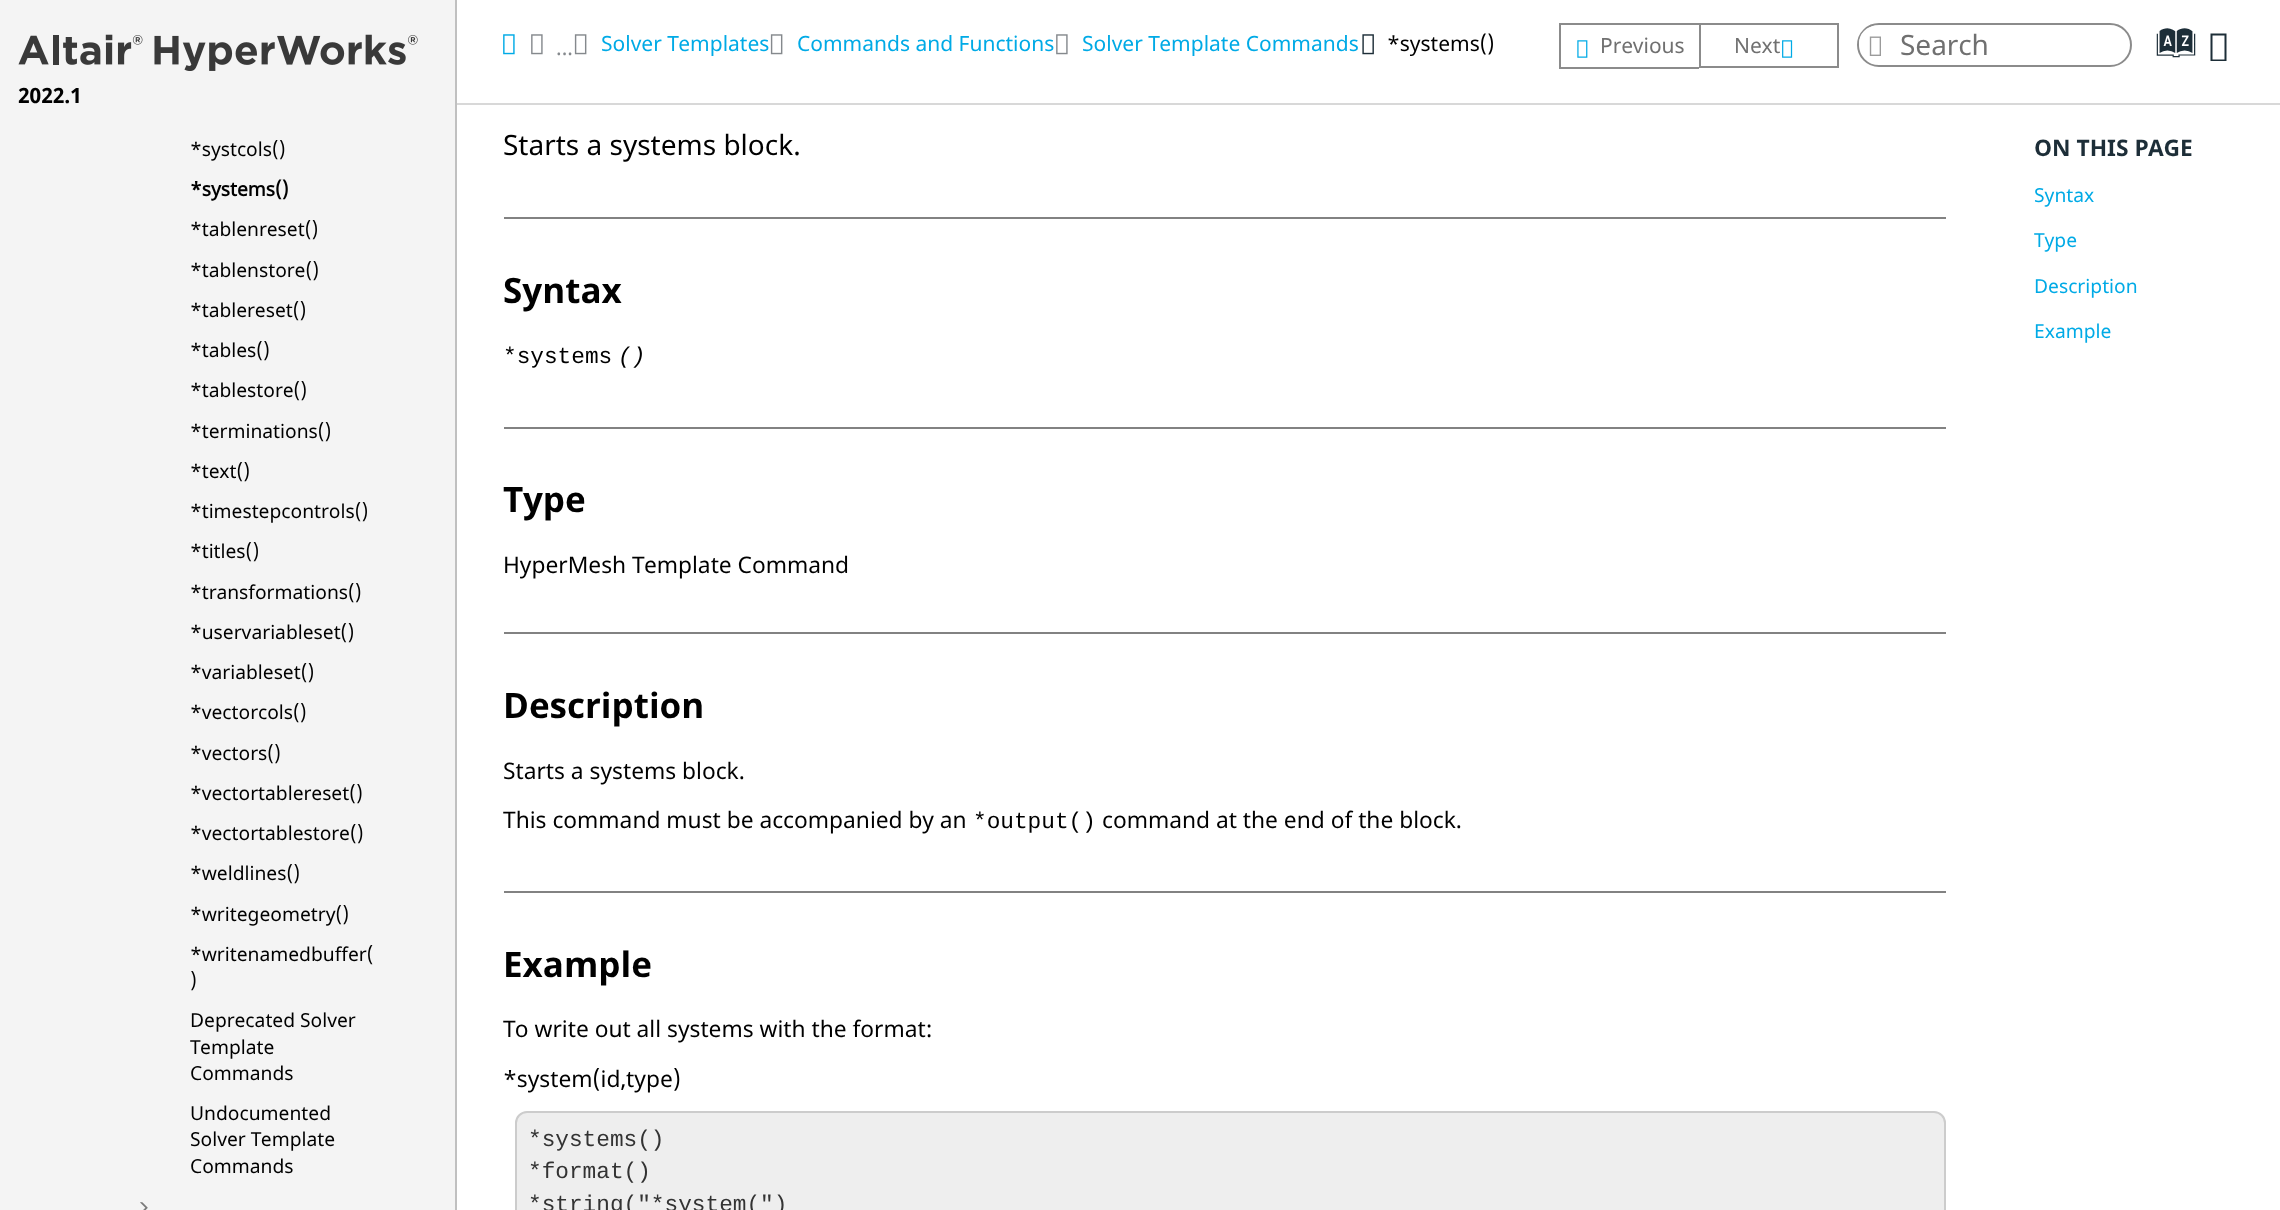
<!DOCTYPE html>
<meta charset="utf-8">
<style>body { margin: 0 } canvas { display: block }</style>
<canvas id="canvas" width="2280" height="1210"></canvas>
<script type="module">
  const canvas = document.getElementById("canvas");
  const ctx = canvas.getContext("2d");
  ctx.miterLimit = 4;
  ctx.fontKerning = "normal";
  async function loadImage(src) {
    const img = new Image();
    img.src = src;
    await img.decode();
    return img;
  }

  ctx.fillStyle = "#ffffff";
  ctx.fillRect(0, 0, 2280, 1210);
  ctx.fillStyle = "#f4f4f4";
  ctx.fillRect(0, 0, 455, 1210);
  ctx.fillStyle = "#c0c0c0";
  ctx.fillRect(455, 0, 2, 1210);
  ctx.drawImage(await loadImage("img1.png"), 18, 34, 400, 37);
  ctx.font = "bold 21px Noto Sans";
  ctx.fillStyle = "#000000";
  ctx.fillText("2022.1", 18, 103);
  ctx.font = "19.25px Noto Sans";
  ctx.fillText("*systcols()", 190, 156);
  ctx.font = "bold 19.25px 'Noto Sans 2'";
  ctx.fillText("*systems()", 190, 196);
  ctx.font = "19.25px Noto Sans";
  ctx.fillText("*tablenreset()", 190, 236);
  ctx.fillText("*tablenstore()", 190, 277);
  ctx.fillText("*tablereset()", 190, 317);
  ctx.fillText("*tables()", 190, 357);
  ctx.fillText("*tablestore()", 190, 397);
  ctx.fillText("*terminations()", 190, 438);
  ctx.fillText("*text()", 190, 478);
  ctx.fillText("*timestepcontrols()", 190, 518);
  ctx.fillText("*titles()", 190, 558);
  ctx.fillText("*transformations()", 190, 599);
  ctx.fillText("*uservariableset()", 190, 639);
  ctx.fillText("*variableset()", 190, 679);
  ctx.fillText("*vectorcols()", 190, 719);
  ctx.fillText("*vectors()", 190, 760);
  ctx.fillText("*vectortablereset()", 190, 800);
  ctx.fillText("*vectortablestore()", 190, 840);
  ctx.fillText("*weldlines()", 190, 880);
  ctx.fillText("*writegeometry()", 190, 921);
  ctx.fillText("*writenamedbuffer(", 190, 961);
  ctx.fillText(")", 190, 987);
  ctx.fillText("Deprecated Solver", 190, 1027);
  ctx.fillText("Template", 190, 1054);
  ctx.fillText("Commands", 190, 1080);
  ctx.fillText("Undocumented", 190, 1120);
  ctx.fillText("Solver Template", 190, 1146);
  ctx.fillText("Commands", 190, 1173);
  ctx.drawImage(await loadImage("img2.png"), 140, 1202, 8, 8);
  ctx.fillStyle = "#d8d8d8";
  ctx.fillRect(457, 103, 1823, 2);
  ctx.drawImage(await loadImage("img3.png"), 503, 34, 12, 21);
  ctx.drawImage(await loadImage("img4.png"), 531, 34, 12, 21);
  ctx.font = "21px Noto Sans";
  ctx.fillStyle = "#85898d";
  ctx.fillText("...", 556, 55);
  ctx.drawImage(await loadImage("img5.png"), 574, 34, 13, 21);
  ctx.fillStyle = "#00aae6";
  ctx.fillText("Solver Templates", 601, 51);
  ctx.drawImage(await loadImage("img5.png"), 770, 34, 13, 21);
  ctx.fillText("Commands and Functions", 797, 51);
  ctx.drawImage(await loadImage("img4.png"), 1056, 34, 12, 21);
  ctx.fillText("Solver Template Commands", 1082, 51);
  ctx.drawImage(await loadImage("img6.png"), 1362, 34, 12, 21);
  ctx.fillStyle = "#000000";
  ctx.fillText("*systems()", 1387, 51);
  ctx.fillStyle = "#8b8b8b";
  ctx.fillRect(1559, 23, 140, 2);
  ctx.fillRect(1559, 67, 140, 2);
  ctx.fillRect(1559, 23, 2, 45);
  ctx.drawImage(await loadImage("img7.png"), 1577, 40, 11, 18);
  ctx.fillStyle = "#707070";
  ctx.fillText("Previous", 1600, 53);
  ctx.strokeStyle = "#8b8b8b";
  ctx.lineWidth = 2;
  ctx.strokeRect(1700, 24, 138, 43);
  ctx.fillText("Next", 1734, 53);
  ctx.drawImage(await loadImage("img8.png"), 1782, 40, 11, 18);
  ctx.beginPath();
  ctx.roundRect(1858, 24, 273, 42, 21);
  ctx.stroke();
  ctx.fillStyle = "#ffffff";
  ctx.beginPath();
  ctx.roundRect(1859, 26, 35, 34, 17);
  ctx.fill();
  ctx.drawImage(await loadImage("img9.png"), 1869, 36, 12, 20);
  ctx.font = "28px Noto Sans";
  ctx.fillStyle = "#707070";
  ctx.fillText("Search", 1900, 55);
  ctx.font = "41px Oxygen";
  ctx.fillStyle = "#1d2e38";
  ctx.fillText("a", 2161, 62);
  ctx.beginPath();
  ctx.moveTo(2210.5, 61);
  ctx.lineTo(2210.5, 33.5);
  ctx.lineTo(2226.5, 33.5);
  ctx.lineTo(2226.5, 61);
  ctx.closePath();
  ctx.moveTo(2212.5, 59.5);
  ctx.lineTo(2224.5, 59.5);
  ctx.lineTo(2224.5, 35.5);
  ctx.lineTo(2212.5, 35.5);
  ctx.closePath();
  ctx.fill();
  ctx.font = "28px Noto Sans";
  ctx.fillStyle = "#000000";
  ctx.fillText("Starts a systems block.", 503, 155);
  ctx.fillStyle = "#828282";
  ctx.fillRect(504, 217, 1442, 2);
  ctx.font = "bold 35px Noto Sans";
  ctx.fillStyle = "#000000";
  ctx.fillText("Syntax", 503, 303);
  ctx.font = "22.75px Liberation Mono";
  ctx.fillText("*systems", 503, 363);
  ctx.font = "italic 22.75px Liberation Mono";
  ctx.fillText("()", 618, 363);
  ctx.fillStyle = "#828282";
  ctx.fillRect(504, 427, 1442, 2);
  ctx.font = "bold 35px Noto Sans";
  ctx.fillStyle = "#000000";
  ctx.fillText("Type", 503, 512);
  ctx.font = "22.75px Noto Sans";
  ctx.fillText("HyperMesh Template Command", 503, 573);
  ctx.fillStyle = "#828282";
  ctx.fillRect(504, 632, 1442, 2);
  ctx.font = "bold 35px Noto Sans";
  ctx.fillStyle = "#000000";
  ctx.fillText("Description", 503, 718);
  ctx.font = "22.75px Noto Sans";
  ctx.fillText("Starts a systems block.", 503, 779);
  ctx.fillText("This command must be accompanied by an", 503, 828);
  ctx.font = "22.75px Liberation Mono";
  ctx.fillText("*output()", 973, 828);
  ctx.font = "22.75px Noto Sans";
  ctx.fillText("command at the end of the block.", 1102, 828);
  ctx.fillStyle = "#828282";
  ctx.fillRect(504, 891, 1442, 2);
  ctx.font = "bold 35px Noto Sans";
  ctx.fillStyle = "#000000";
  ctx.fillText("Example", 503, 977);
  ctx.font = "22.75px Noto Sans";
  ctx.fillText("To write out all systems with the format:", 503, 1037);
  ctx.fillText("*system(id,type)", 503, 1087);
  ctx.fillStyle = "#eeeeee";
  ctx.beginPath();
  ctx.roundRect(516, 1112, 1429, 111, 11);
  ctx.fill();
  ctx.strokeStyle = "#cccccc";
  ctx.stroke();
  ctx.font = "22.75px Liberation Mono";
  ctx.fillStyle = "#333333";
  ctx.fillText("*systems()", 528, 1146);
  ctx.fillText("*format()", 528, 1178);
  ctx.fillText("*string(\"*system(\")", 528, 1211);
  ctx.font = "bold 22.75px Noto Sans";
  ctx.fillStyle = "#1d2e38";
  ctx.fillText("ON THIS PAGE", 2034, 156);
  ctx.font = "19.25px Noto Sans";
  ctx.fillStyle = "#00aae6";
  ctx.fillText("Syntax", 2034, 202);
  ctx.fillText("Type", 2034, 247);
  ctx.fillText("Description", 2034, 293);
  ctx.fillText("Example", 2034, 338);
</script>
